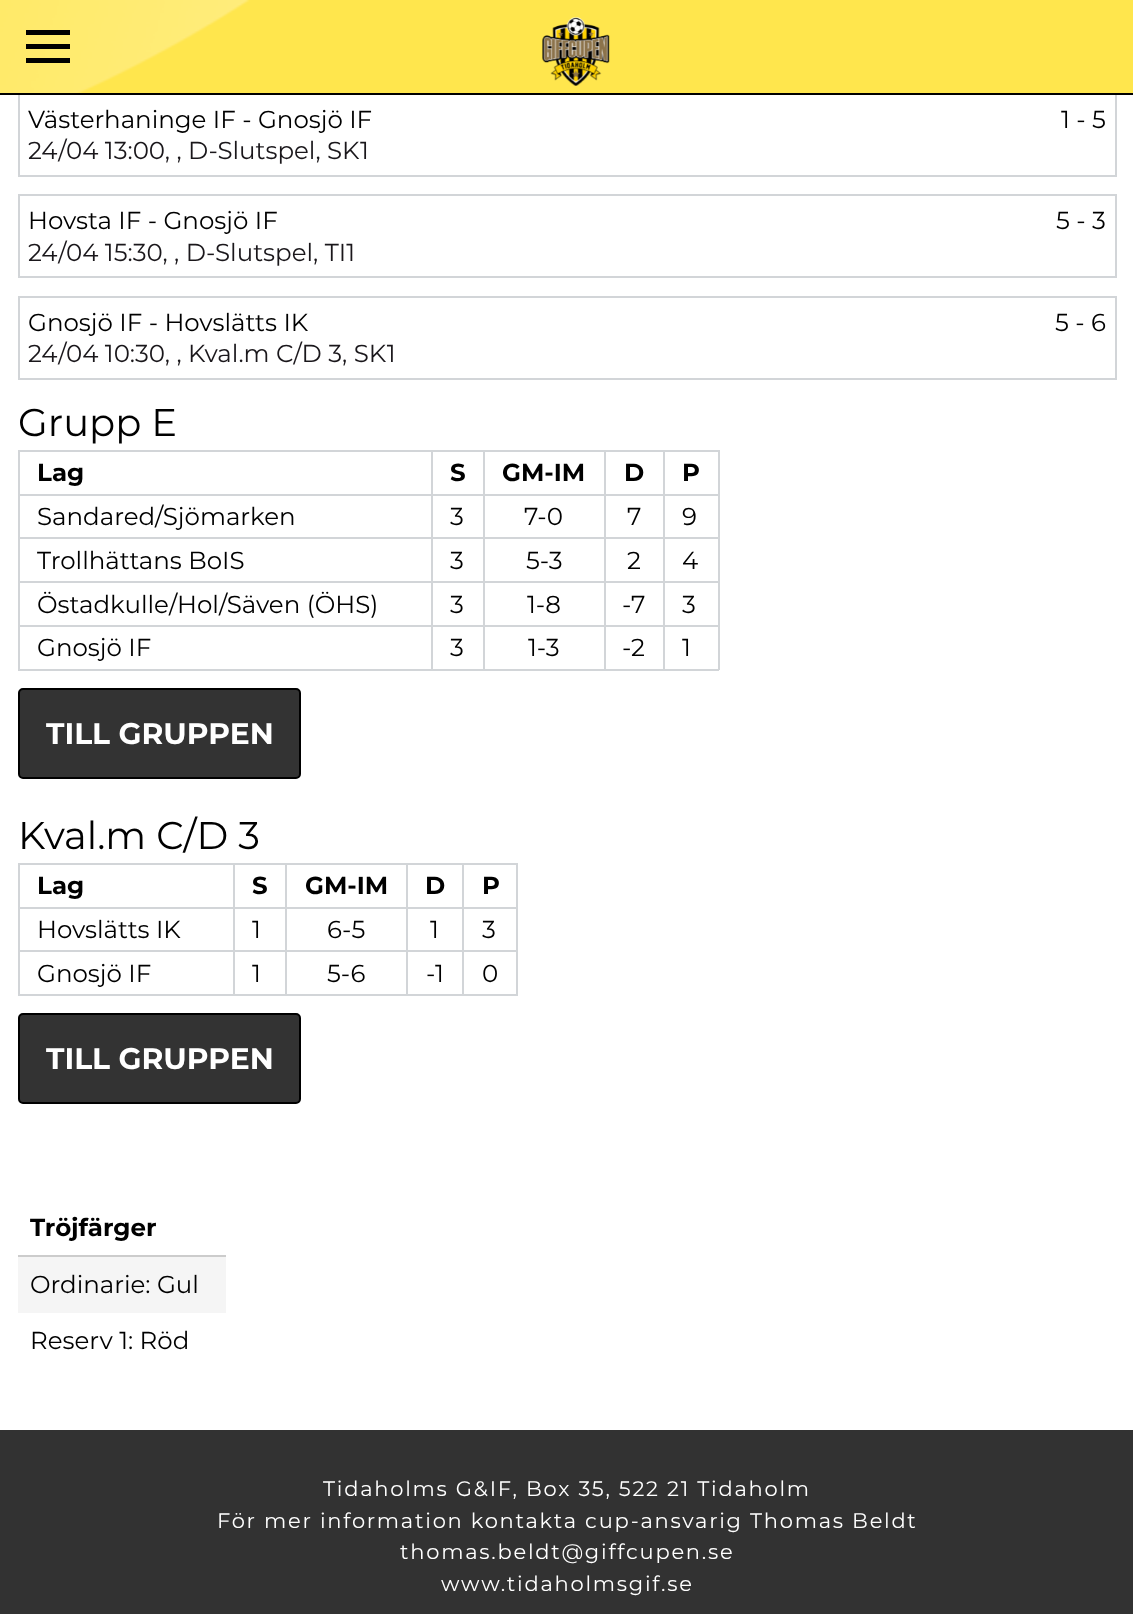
<!DOCTYPE html>
<meta charset="utf-8">
<style>body { margin: 0 } canvas { display: block }</style>
<canvas id="canvas" width="1133" height="1614"></canvas>
<script type="module">
  const canvas = document.getElementById("canvas");
  const ctx = canvas.getContext("2d");
  ctx.miterLimit = 4;
  ctx.fontKerning = "normal";
  async function loadImage(src) {
    const img = new Image();
    img.src = src;
    await img.decode();
    return img;
  }

  ctx.fillStyle = "#ffffff";
  ctx.fillRect(0, 0, 1133, 1614);
  ctx.drawImage(await loadImage("img1.png"), 0, 0, 1133, 93);
  ctx.strokeStyle = "#d2d5d8";
  ctx.lineWidth = 2;
  ctx.strokeRect(19, 94, 1097, 82);
  ctx.fillStyle = "#000000";
  ctx.fillRect(0, 93, 1133, 2);
  ctx.fillRect(26, 44, 44, 5);
  ctx.fillRect(26, 30, 44, 5);
  ctx.fillRect(26, 58, 44, 5);
  ctx.drawImage(await loadImage("img2.png"), 542, 17, 68, 69);
  ctx.font = "24.5px Montserrat";
  ctx.fillText("Västerhaninge IF - Gnosjö IF", 28, 128);
  ctx.fillText("1 - 5", 1061, 128);
  ctx.fillStyle = "#1a171b";
  ctx.fillText("24/04 13:00, , D-Slutspel, SK1", 28, 159);
  ctx.strokeRect(19, 195, 1097, 82);
  ctx.fillStyle = "#000000";
  ctx.fillText("Hovsta IF - Gnosjö IF", 28, 229);
  ctx.fillText("5 - 3", 1056, 229);
  ctx.fillStyle = "#1a171b";
  ctx.fillText("24/04 15:30, , D-Slutspel, TI1", 28, 261);
  ctx.strokeRect(19, 297, 1097, 82);
  ctx.fillStyle = "#000000";
  ctx.fillText("Gnosjö IF - Hovslätts IK", 28, 331);
  ctx.fillText("5 - 6", 1055, 331);
  ctx.fillStyle = "#1a171b";
  ctx.fillText("24/04 10:30, , Kval.m C/D 3, SK1", 28, 362);
  ctx.font = "38.5px Montserrat";
  ctx.fillStyle = "#000000";
  ctx.fillText("Grupp E", 18, 436);
  ctx.fillStyle = "#d2d5d8";
  ctx.fillRect(663, 450, 56, 2);
  ctx.fillRect(663, 494, 56, 2);
  ctx.fillRect(663, 537, 56, 2);
  ctx.fillRect(663, 581, 56, 2);
  ctx.fillRect(663, 625, 56, 2);
  ctx.fillRect(718, 625, 2, 45);
  ctx.fillRect(663, 669, 56, 2);
  ctx.fillRect(663, 625, 2, 45);
  ctx.fillRect(604, 625, 61, 2);
  ctx.fillRect(663, 581, 2, 46);
  ctx.fillRect(604, 581, 61, 2);
  ctx.fillRect(663, 537, 2, 46);
  ctx.fillRect(604, 537, 61, 2);
  ctx.fillRect(663, 494, 2, 45);
  ctx.fillRect(604, 494, 61, 2);
  ctx.fillRect(663, 450, 2, 45);
  ctx.fillRect(604, 450, 61, 2);
  ctx.fillRect(604, 669, 61, 2);
  ctx.fillRect(604, 625, 2, 45);
  ctx.fillRect(483, 625, 123, 2);
  ctx.fillRect(604, 581, 2, 46);
  ctx.fillRect(483, 581, 123, 2);
  ctx.fillRect(604, 537, 2, 46);
  ctx.fillRect(483, 537, 123, 2);
  ctx.fillRect(604, 494, 2, 45);
  ctx.fillRect(483, 494, 123, 2);
  ctx.fillRect(604, 450, 2, 45);
  ctx.fillRect(483, 450, 123, 2);
  ctx.fillRect(483, 669, 123, 2);
  ctx.fillRect(483, 625, 2, 45);
  ctx.fillRect(431, 625, 54, 2);
  ctx.fillRect(483, 581, 2, 46);
  ctx.fillRect(431, 581, 54, 2);
  ctx.fillRect(483, 537, 2, 46);
  ctx.fillRect(431, 537, 54, 2);
  ctx.fillRect(483, 494, 2, 45);
  ctx.fillRect(431, 494, 54, 2);
  ctx.fillRect(483, 450, 2, 45);
  ctx.fillRect(431, 450, 54, 2);
  ctx.fillRect(431, 669, 54, 2);
  ctx.fillRect(431, 625, 2, 45);
  ctx.fillRect(18, 625, 414, 2);
  ctx.fillRect(431, 581, 2, 46);
  ctx.fillRect(18, 581, 414, 2);
  ctx.fillRect(431, 537, 2, 46);
  ctx.fillRect(18, 537, 414, 2);
  ctx.fillRect(431, 494, 2, 45);
  ctx.fillRect(18, 494, 414, 2);
  ctx.fillRect(431, 450, 2, 45);
  ctx.fillRect(18, 450, 414, 2);
  ctx.fillRect(18, 669, 414, 2);
  ctx.fillRect(18, 625, 2, 45);
  ctx.fillRect(18, 581, 2, 46);
  ctx.fillRect(18, 537, 2, 46);
  ctx.fillRect(18, 494, 2, 45);
  ctx.fillRect(18, 450, 2, 45);
  ctx.font = "bold 24.5px Montserrat";
  ctx.fillStyle = "#000000";
  ctx.fillText("Lag", 37, 481);
  ctx.fillText("S", 450, 481);
  ctx.fillText("GM-IM", 502, 481);
  ctx.fillText("D", 624, 481);
  ctx.fillStyle = "#d2d5d8";
  ctx.fillRect(718, 581, 2, 46);
  ctx.fillRect(718, 537, 2, 46);
  ctx.fillRect(718, 494, 2, 45);
  ctx.fillRect(718, 450, 2, 45);
  ctx.fillStyle = "#000000";
  ctx.fillText("P", 682, 481);
  ctx.font = "24.5px Montserrat";
  ctx.fillText("Sandared/Sjömarken", 37, 525);
  ctx.fillText("3", 450, 525);
  ctx.fillText("7-0", 524, 525);
  ctx.fillText("7", 627, 525);
  ctx.fillText("9", 682, 525);
  ctx.fillText("Trollhättans BoIS", 37, 569);
  ctx.fillText("3", 450, 569);
  ctx.fillText("5-3", 526, 569);
  ctx.fillText("2", 627, 569);
  ctx.fillText("4", 682, 569);
  ctx.fillText("Östadkulle/Hol/Säven (ÖHS)", 37, 613);
  ctx.fillText("3", 450, 613);
  ctx.fillText("1-8", 527, 613);
  ctx.fillText("-7", 622, 613);
  ctx.fillText("3", 682, 613);
  ctx.fillText("Gnosjö IF", 37, 656);
  ctx.fillText("3", 450, 656);
  ctx.fillText("1-3", 528, 656);
  ctx.fillText("-2", 622, 656);
  ctx.fillText("1", 682, 656);
  ctx.fillStyle = "#333333";
  ctx.beginPath();
  ctx.roundRect(19, 689, 281, 89, 4);
  ctx.fill();
  ctx.strokeStyle = "#000000";
  ctx.stroke();
  ctx.font = "bold 29.75px Montserrat";
  ctx.fillStyle = "#ffffff";
  ctx.fillText("TILL GRUPPEN", 46, 744);
  ctx.font = "38.5px Montserrat";
  ctx.fillStyle = "#000000";
  ctx.fillText("Kval.m C/D 3", 18, 849);
  ctx.fillStyle = "#d2d5d8";
  ctx.fillRect(462, 863, 56, 2);
  ctx.fillRect(462, 907, 56, 2);
  ctx.fillRect(462, 950, 56, 2);
  ctx.fillRect(516, 950, 2, 46);
  ctx.fillRect(462, 994, 56, 2);
  ctx.fillRect(462, 950, 2, 46);
  ctx.fillRect(406, 950, 58, 2);
  ctx.fillRect(462, 907, 2, 45);
  ctx.fillRect(406, 907, 58, 2);
  ctx.fillRect(462, 863, 2, 45);
  ctx.fillRect(406, 863, 58, 2);
  ctx.fillRect(406, 994, 58, 2);
  ctx.fillRect(406, 950, 2, 46);
  ctx.fillRect(285, 950, 123, 2);
  ctx.fillRect(406, 907, 2, 45);
  ctx.fillRect(285, 907, 123, 2);
  ctx.fillRect(406, 863, 2, 45);
  ctx.fillRect(285, 863, 123, 2);
  ctx.fillRect(285, 994, 123, 2);
  ctx.fillRect(285, 950, 2, 46);
  ctx.fillRect(233, 950, 54, 2);
  ctx.fillRect(285, 907, 2, 45);
  ctx.fillRect(233, 907, 54, 2);
  ctx.fillRect(285, 863, 2, 45);
  ctx.fillRect(233, 863, 54, 2);
  ctx.fillRect(233, 994, 54, 2);
  ctx.fillRect(233, 950, 2, 46);
  ctx.fillRect(18, 950, 217, 2);
  ctx.fillRect(233, 907, 2, 45);
  ctx.fillRect(18, 907, 217, 2);
  ctx.fillRect(233, 863, 2, 45);
  ctx.fillRect(18, 863, 217, 2);
  ctx.fillRect(18, 994, 217, 2);
  ctx.fillRect(18, 950, 2, 46);
  ctx.fillRect(18, 907, 2, 45);
  ctx.fillRect(18, 863, 2, 45);
  ctx.font = "bold 24.5px Montserrat";
  ctx.fillStyle = "#000000";
  ctx.fillText("Lag", 37, 894);
  ctx.fillText("S", 252, 894);
  ctx.fillText("GM-IM", 305, 894);
  ctx.fillText("D", 425, 894);
  ctx.fillStyle = "#d2d5d8";
  ctx.fillRect(516, 907, 2, 45);
  ctx.fillRect(516, 863, 2, 45);
  ctx.fillStyle = "#000000";
  ctx.fillText("P", 482, 894);
  ctx.font = "24.5px Montserrat";
  ctx.fillText("Hovslätts IK", 37, 938);
  ctx.fillText("1", 252, 938);
  ctx.fillText("6-5", 327, 938);
  ctx.fillText("1", 430, 938);
  ctx.fillText("3", 482, 938);
  ctx.fillText("Gnosjö IF", 37, 982);
  ctx.fillText("1", 252, 982);
  ctx.fillText("5-6", 327, 982);
  ctx.fillText("-1", 426, 982);
  ctx.fillText("0", 482, 982);
  ctx.fillStyle = "#333333";
  ctx.beginPath();
  ctx.roundRect(19, 1014, 281, 89, 4);
  ctx.fill();
  ctx.stroke();
  ctx.font = "bold 29.75px Montserrat";
  ctx.fillStyle = "#ffffff";
  ctx.fillText("TILL GRUPPEN", 46, 1069);
  ctx.fillStyle = "#cccccc";
  ctx.fillRect(18, 1255, 208, 2);
  ctx.font = "bold 24.5px Montserrat";
  ctx.fillStyle = "#000000";
  ctx.fillText("Tröjfärger", 30, 1236);
  ctx.fillStyle = "#f5f5f5";
  ctx.fillRect(18, 1257, 208, 56);
  ctx.font = "24.5px Montserrat";
  ctx.fillStyle = "#000000";
  ctx.fillText("Ordinarie: Gul", 30, 1293);
  ctx.fillText("Reserv 1: Röd", 30, 1349);
  ctx.fillStyle = "#323232";
  ctx.fillRect(0, 1430, 1133, 184);
  ctx.letterSpacing = "1.75px";
  ctx.font = "21px Montserrat";
  ctx.fillStyle = "#ffffff";
  ctx.fillText("Tidaholms G&IF, Box 35, 522 21 Tidaholm", 323, 1496);
  ctx.fillText("För mer information kontakta cup-ansvarig Thomas Beldt", 217, 1528);
  ctx.fillText("thomas.beldt@giffcupen.se", 400, 1559);
  ctx.fillText("www.tidaholmsgif.se", 441, 1591);
</script>
